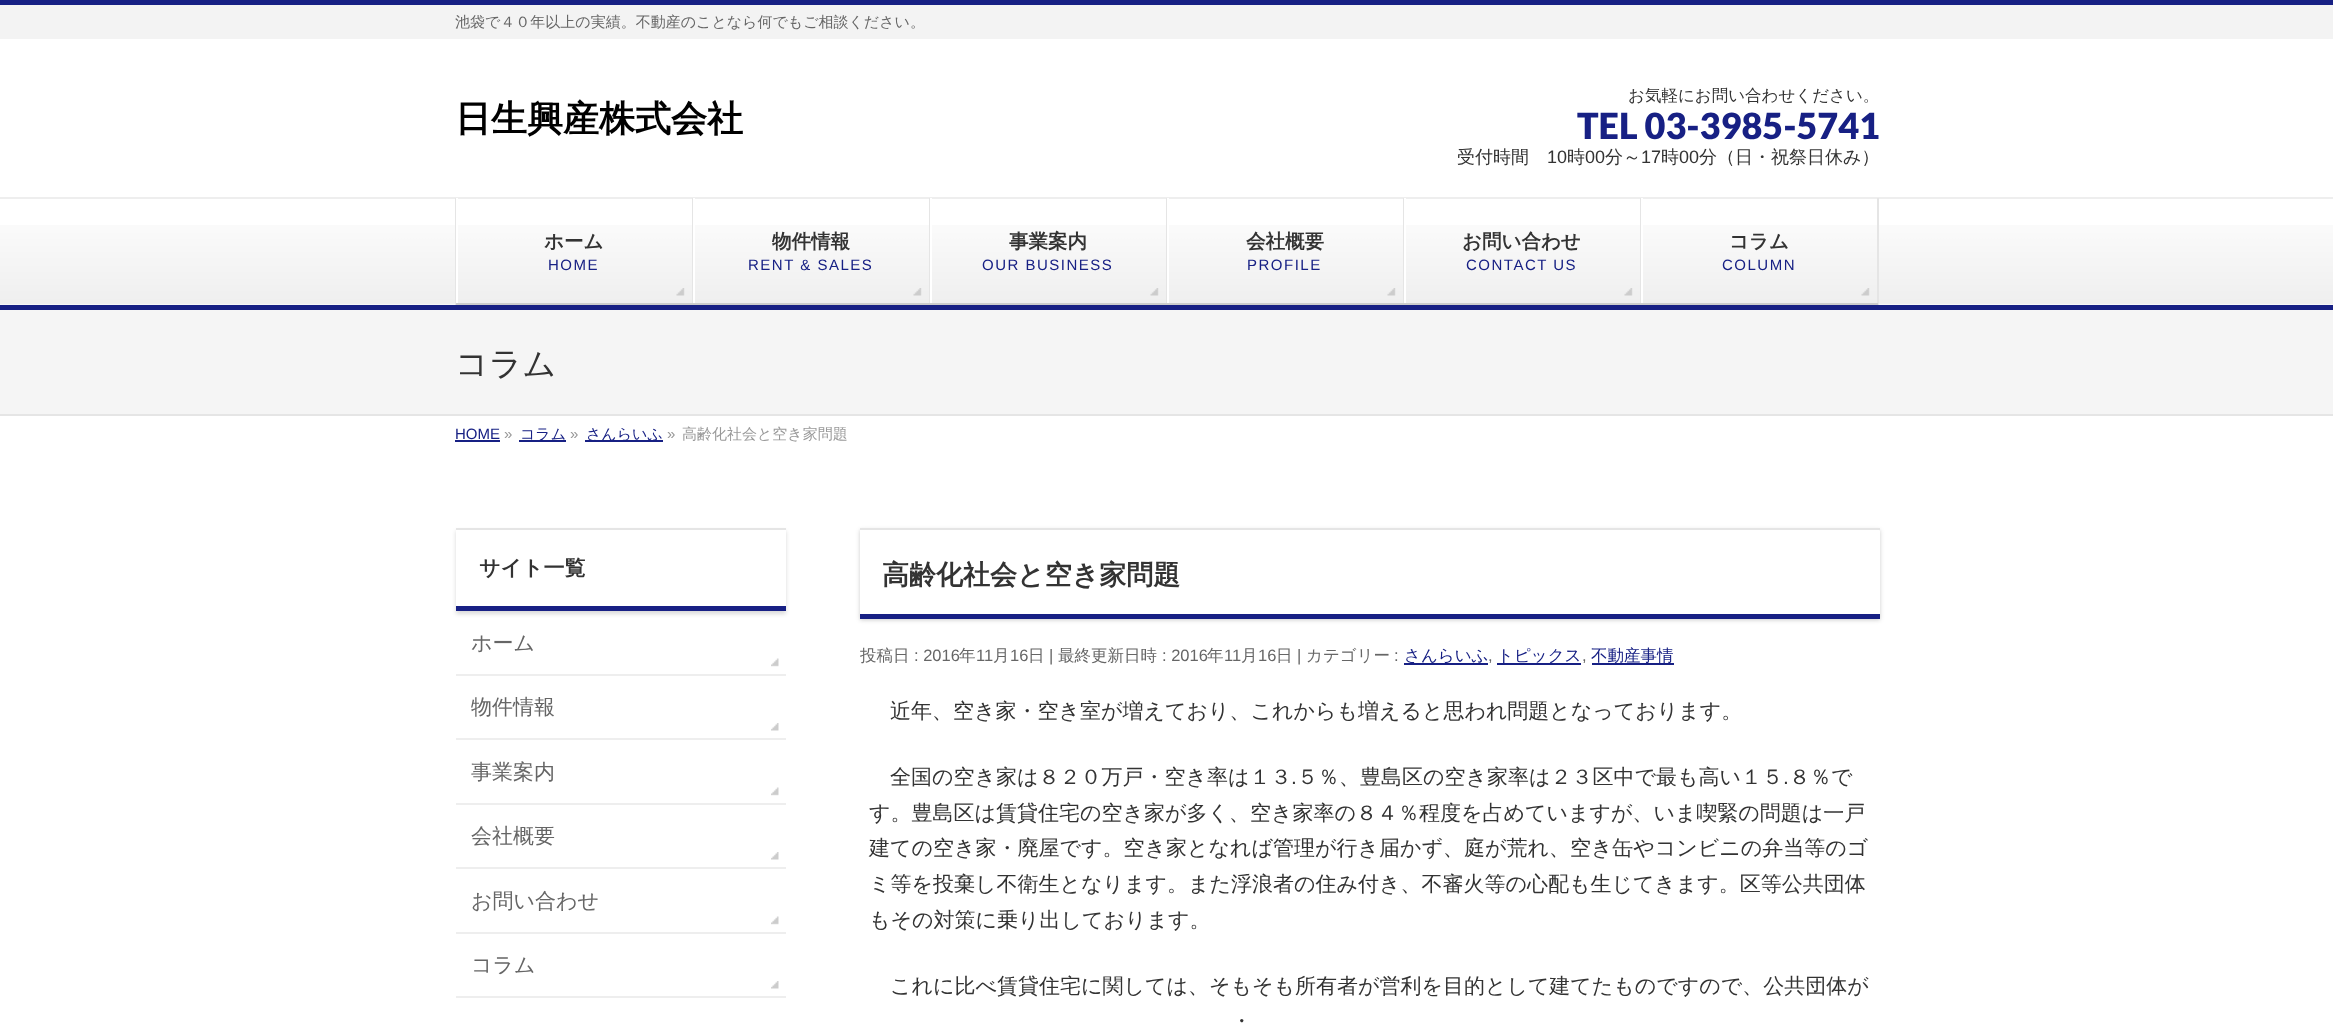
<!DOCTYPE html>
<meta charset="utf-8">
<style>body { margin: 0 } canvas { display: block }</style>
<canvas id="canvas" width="2333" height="1024"></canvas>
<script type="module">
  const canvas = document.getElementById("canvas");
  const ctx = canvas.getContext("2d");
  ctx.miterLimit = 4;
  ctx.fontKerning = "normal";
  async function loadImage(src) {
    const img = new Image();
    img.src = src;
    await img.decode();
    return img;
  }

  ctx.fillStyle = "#ffffff";
  ctx.fillRect(0, 0, 2333, 1024);
  ctx.fillStyle = "#f3f3f3";
  ctx.fillRect(0, 5, 2333, 34);
  ctx.fillStyle = "#172084";
  ctx.fillRect(0, 0, 2333, 5);
  ctx.font = "500 15px WenQuanYi Zen Hei";
  ctx.fillStyle = "#666666";
  ctx.fillText("池袋で４０年以上の実績。不動産のことなら何でもご相談ください。", 455, 27);
  ctx.font = "bold 36px WenQuanYi Zen Hei";
  ctx.fillStyle = "#000000";
  ctx.fillText("日生興産株式会社", 455, 131);
  ctx.font = "500 16.5px WenQuanYi Zen Hei";
  ctx.fillStyle = "#333333";
  ctx.fillText("お気軽にお問い合わせください。", 1628, 101);
  ctx.font = "900 36px Lato";
  ctx.fillStyle = "#172084";
  ctx.fillText("TEL 03-3985-5741", 1577, 139);
  ctx.font = "500 18px WenQuanYi Zen Hei";
  ctx.fillStyle = "#333333";
  ctx.fillText("受付時間", 1457, 163);
  ctx.font = "18px Liberation Sans";
  ctx.fillText("10", 1547, 163);
  ctx.font = "500 18px WenQuanYi Zen Hei";
  ctx.fillText("時", 1567, 163);
  ctx.font = "18px Liberation Sans";
  ctx.fillText("00", 1585, 163);
  ctx.font = "500 18px WenQuanYi Zen Hei";
  ctx.fillText("分～", 1605, 163);
  ctx.font = "18px Liberation Sans";
  ctx.fillText("17", 1641, 163);
  ctx.font = "500 18px WenQuanYi Zen Hei";
  ctx.fillText("時", 1661, 163);
  ctx.font = "18px Liberation Sans";
  ctx.fillText("00", 1679, 163);
  ctx.font = "500 18px WenQuanYi Zen Hei";
  ctx.fillText("分（日・祝祭日休み）", 1699, 163);
  ctx.drawImage(await loadImage("img1.png"), 0, 225, 2333, 80);
  ctx.fillStyle = "#eeeeee";
  ctx.fillRect(0, 197, 2333, 2);
  ctx.fillStyle = "#172084";
  ctx.fillRect(0, 305, 2333, 5);
  ctx.fillStyle = "#e5e5e5";
  ctx.fillRect(455, 198, 1, 107);
  ctx.fillStyle = "#ffffff";
  ctx.fillRect(456, 198, 2, 107);
  ctx.drawImage(await loadImage("img2.png"), 676, 288, 9, 8);
  ctx.fillStyle = "#e5e5e5";
  ctx.fillRect(692, 198, 1, 107);
  ctx.fillStyle = "#cccccc";
  ctx.fillRect(456, 303, 237, 2);
  ctx.font = "bold 19.5px WenQuanYi Zen Hei";
  ctx.fillStyle = "#333333";
  ctx.fillText("ホーム", 544, 248);
  ctx.letterSpacing = "1.5px";
  ctx.font = "15px Liberation Sans";
  ctx.fillStyle = "#172084";
  ctx.fillText("HOME", 548, 270);
  ctx.fillStyle = "#ffffff";
  ctx.fillRect(693, 198, 2, 107);
  ctx.drawImage(await loadImage("img3.png"), 913, 288, 9, 8);
  ctx.fillStyle = "#e5e5e5";
  ctx.fillRect(929, 198, 1, 107);
  ctx.fillStyle = "#cccccc";
  ctx.fillRect(693, 303, 237, 2);
  ctx.letterSpacing = "0px";
  ctx.font = "bold 19.5px WenQuanYi Zen Hei";
  ctx.fillStyle = "#333333";
  ctx.fillText("物件情報", 772, 248);
  ctx.letterSpacing = "1.5px";
  ctx.font = "15px Liberation Sans";
  ctx.fillStyle = "#172084";
  ctx.fillText("RENT & SALES", 748, 270);
  ctx.fillStyle = "#ffffff";
  ctx.fillRect(930, 198, 2, 107);
  ctx.drawImage(await loadImage("img2.png"), 1150, 288, 9, 8);
  ctx.fillStyle = "#e5e5e5";
  ctx.fillRect(1166, 198, 1, 107);
  ctx.fillStyle = "#cccccc";
  ctx.fillRect(930, 303, 237, 2);
  ctx.letterSpacing = "0px";
  ctx.font = "bold 19.5px WenQuanYi Zen Hei";
  ctx.fillStyle = "#333333";
  ctx.fillText("事業案内", 1009, 248);
  ctx.letterSpacing = "1.5px";
  ctx.font = "15px Liberation Sans";
  ctx.fillStyle = "#172084";
  ctx.fillText("OUR BUSINESS", 982, 270);
  ctx.fillStyle = "#ffffff";
  ctx.fillRect(1167, 198, 2, 107);
  ctx.drawImage(await loadImage("img2.png"), 1387, 288, 9, 8);
  ctx.fillStyle = "#e5e5e5";
  ctx.fillRect(1403, 198, 1, 107);
  ctx.fillStyle = "#cccccc";
  ctx.fillRect(1167, 303, 237, 2);
  ctx.letterSpacing = "0px";
  ctx.font = "bold 19.5px WenQuanYi Zen Hei";
  ctx.fillStyle = "#333333";
  ctx.fillText("会社概要", 1246, 248);
  ctx.letterSpacing = "1.5px";
  ctx.font = "15px Liberation Sans";
  ctx.fillStyle = "#172084";
  ctx.fillText("PROFILE", 1247, 270);
  ctx.fillStyle = "#ffffff";
  ctx.fillRect(1404, 198, 2, 107);
  ctx.drawImage(await loadImage("img3.png"), 1624, 288, 9, 8);
  ctx.fillStyle = "#e5e5e5";
  ctx.fillRect(1640, 198, 1, 107);
  ctx.fillStyle = "#cccccc";
  ctx.fillRect(1404, 303, 237, 2);
  ctx.letterSpacing = "0px";
  ctx.font = "bold 19.5px WenQuanYi Zen Hei";
  ctx.fillStyle = "#333333";
  ctx.fillText("お問い合わせ", 1462, 248);
  ctx.letterSpacing = "1.5px";
  ctx.font = "15px Liberation Sans";
  ctx.fillStyle = "#172084";
  ctx.fillText("CONTACT US", 1466, 270);
  ctx.fillStyle = "#ffffff";
  ctx.fillRect(1641, 198, 2, 107);
  ctx.drawImage(await loadImage("img3.png"), 1861, 288, 9, 8);
  ctx.fillStyle = "#e5e5e5";
  ctx.fillRect(1877, 198, 2, 107);
  ctx.fillStyle = "#cccccc";
  ctx.fillRect(1641, 303, 237, 2);
  ctx.letterSpacing = "0px";
  ctx.font = "bold 19.5px WenQuanYi Zen Hei";
  ctx.fillStyle = "#333333";
  ctx.fillText("コラム", 1729, 248);
  ctx.letterSpacing = "1.5px";
  ctx.font = "15px Liberation Sans";
  ctx.fillStyle = "#172084";
  ctx.fillText("COLUMN", 1722, 270);
  ctx.fillStyle = "#f5f5f5";
  ctx.fillRect(0, 310, 2333, 104);
  ctx.fillStyle = "#e5e5e5";
  ctx.fillRect(0, 414, 2333, 2);
  ctx.letterSpacing = "0px";
  ctx.font = "500 33px WenQuanYi Zen Hei";
  ctx.fillStyle = "#333333";
  ctx.fillText("コラム", 455, 375);
  ctx.font = "15px Liberation Sans";
  ctx.fillStyle = "#172084";
  ctx.fillText("HOME", 455, 439);
  ctx.fillRect(455, 440, 45, 2);
  ctx.fillStyle = "#999999";
  ctx.fillText("»", 504, 439);
  ctx.fillStyle = "#172084";
  ctx.fillRect(519, 440, 47, 2);
  ctx.font = "500 15px WenQuanYi Zen Hei";
  ctx.fillText("コラム", 520, 439);
  ctx.font = "15px Liberation Sans";
  ctx.fillStyle = "#999999";
  ctx.fillText("»", 570, 439);
  ctx.fillStyle = "#172084";
  ctx.fillRect(585, 440, 78, 2);
  ctx.font = "500 15px WenQuanYi Zen Hei";
  ctx.fillText("さんらいふ", 586, 439);
  ctx.font = "15px Liberation Sans";
  ctx.fillStyle = "#999999";
  ctx.fillText("»", 667, 439);
  ctx.font = "500 15px WenQuanYi Zen Hei";
  ctx.fillText("高齢化社会と空き家問題", 682, 439);
  ctx.save();
  ctx.beginPath();
  ctx.moveTo(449, 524);
  ctx.lineTo(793, 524);
  ctx.lineTo(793, 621);
  ctx.lineTo(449, 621);
  ctx.closePath();
  ctx.moveTo(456, 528);
  ctx.lineTo(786, 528);
  ctx.lineTo(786, 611);
  ctx.lineTo(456, 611);
  ctx.closePath();
  ctx.clip("evenodd");
  ctx.fillStyle = "rgba(0, 0, 0, 0.15)";
  ctx.filter = "blur(2px)";
  ctx.beginPath();
  ctx.rect(456, 531, 330, 83);
  ctx.fill();
  ctx.filter = "none";
  ctx.restore();
  ctx.fillStyle = "#e5e5e5";
  ctx.fillRect(456, 528, 330, 2);
  ctx.fillStyle = "#172084";
  ctx.fillRect(456, 606, 330, 5);
  ctx.font = "bold 21px WenQuanYi Zen Hei";
  ctx.fillStyle = "#333333";
  ctx.fillText("サイト一覧", 479, 575);
  ctx.fillStyle = "#eeeeee";
  ctx.fillRect(456, 674, 330, 2);
  ctx.drawImage(await loadImage("img4.png"), 771, 658, 8, 9);
  ctx.font = "500 21px WenQuanYi Zen Hei";
  ctx.fillStyle = "#666666";
  ctx.fillText("ホーム", 471, 650);
  ctx.fillStyle = "#eeeeee";
  ctx.fillRect(456, 738, 330, 2);
  ctx.drawImage(await loadImage("img5.png"), 771, 723, 8, 8);
  ctx.fillStyle = "#666666";
  ctx.fillText("物件情報", 471, 714);
  ctx.fillStyle = "#eeeeee";
  ctx.fillRect(456, 803, 330, 2);
  ctx.drawImage(await loadImage("img4.png"), 771, 787, 8, 9);
  ctx.fillStyle = "#666666";
  ctx.fillText("事業案内", 471, 779);
  ctx.fillStyle = "#eeeeee";
  ctx.fillRect(456, 867, 330, 2);
  ctx.drawImage(await loadImage("img5.png"), 771, 852, 8, 8);
  ctx.fillStyle = "#666666";
  ctx.fillText("会社概要", 471, 843);
  ctx.fillStyle = "#eeeeee";
  ctx.fillRect(456, 932, 330, 2);
  ctx.drawImage(await loadImage("img4.png"), 771, 916, 8, 9);
  ctx.fillStyle = "#666666";
  ctx.fillText("お問い合わせ", 471, 908);
  ctx.fillStyle = "#eeeeee";
  ctx.fillRect(456, 996, 330, 2);
  ctx.drawImage(await loadImage("img5.png"), 771, 981, 8, 8);
  ctx.fillStyle = "#666666";
  ctx.fillText("コラム", 471, 972);
  ctx.save();
  ctx.beginPath();
  ctx.moveTo(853, 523);
  ctx.lineTo(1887, 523);
  ctx.lineTo(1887, 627);
  ctx.lineTo(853, 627);
  ctx.closePath();
  ctx.moveTo(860, 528);
  ctx.lineTo(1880, 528);
  ctx.lineTo(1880, 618);
  ctx.lineTo(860, 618);
  ctx.closePath();
  ctx.clip("evenodd");
  ctx.fillStyle = "rgba(0, 0, 0, 0.2)";
  ctx.filter = "blur(2px)";
  ctx.beginPath();
  ctx.rect(860, 530, 1020, 90);
  ctx.fill();
  ctx.filter = "none";
  ctx.restore();
  ctx.fillStyle = "#fafafa";
  ctx.fillRect(1879, 530, 1, 1);
  ctx.fillStyle = "#e5e5e5";
  ctx.fillRect(860, 528, 1020, 2);
  ctx.fillStyle = "#172084";
  ctx.fillRect(860, 614, 1020, 5);
  ctx.font = "bold 27px WenQuanYi Zen Hei";
  ctx.fillStyle = "#333333";
  ctx.fillText("高齢化社会と空き家問題", 882, 584);
  ctx.font = "500 16.5px WenQuanYi Zen Hei";
  ctx.fillStyle = "#666666";
  ctx.fillText("投稿日", 860, 661);
  ctx.font = "16.5px Liberation Sans";
  ctx.fillText(": 2016", 914, 661);
  ctx.font = "500 16.5px WenQuanYi Zen Hei";
  ctx.fillText("年", 959, 661);
  ctx.font = "16.5px Liberation Sans";
  ctx.fillText("11", 976, 661);
  ctx.font = "500 16.5px WenQuanYi Zen Hei";
  ctx.fillText("月", 993, 661);
  ctx.font = "16.5px Liberation Sans";
  ctx.fillText("16", 1010, 661);
  ctx.font = "500 16.5px WenQuanYi Zen Hei";
  ctx.fillText("日", 1028, 661);
  ctx.font = "16.5px Liberation Sans";
  ctx.fillText("|", 1049, 661);
  ctx.font = "500 16.5px WenQuanYi Zen Hei";
  ctx.fillText("最終更新日時", 1058, 661);
  ctx.font = "16.5px Liberation Sans";
  ctx.fillText(": 2016", 1162, 661);
  ctx.font = "500 16.5px WenQuanYi Zen Hei";
  ctx.fillText("年", 1207, 661);
  ctx.font = "16.5px Liberation Sans";
  ctx.fillText("11", 1224, 661);
  ctx.font = "500 16.5px WenQuanYi Zen Hei";
  ctx.fillText("月", 1241, 661);
  ctx.font = "16.5px Liberation Sans";
  ctx.fillText("16", 1258, 661);
  ctx.font = "500 16.5px WenQuanYi Zen Hei";
  ctx.fillText("日", 1276, 661);
  ctx.font = "16.5px Liberation Sans";
  ctx.fillText("|", 1297, 661);
  ctx.font = "500 16.5px WenQuanYi Zen Hei";
  ctx.fillText("カテゴリー", 1306, 661);
  ctx.font = "16.5px Liberation Sans";
  ctx.fillText(":", 1394, 661);
  ctx.fillStyle = "#172084";
  ctx.fillRect(1404, 663, 84, 2);
  ctx.font = "500 16.5px WenQuanYi Zen Hei";
  ctx.fillText("さんらいふ", 1404, 661);
  ctx.fillRect(1497, 663, 84, 2);
  ctx.fillText("トピックス", 1497, 661);
  ctx.fillRect(1592, 663, 82, 2);
  ctx.fillText("不動産事情", 1591, 661);
  ctx.font = "16.5px Liberation Sans";
  ctx.fillStyle = "#666666";
  ctx.fillText(",", 1488, 661);
  ctx.fillText(",", 1582, 661);
  ctx.font = "500 21px WenQuanYi Zen Hei";
  ctx.fillStyle = "#333333";
  ctx.fillText("近年、空き家・空き室が増えており、これからも増えると思われ問題となっております。", 890, 718);
  ctx.fillText("全国の空き家は８２０万戸・空き率は１３", 890, 784);
  ctx.font = "21px Liberation Sans";
  ctx.fillText(".", 1291, 784);
  ctx.font = "500 21px WenQuanYi Zen Hei";
  ctx.fillText("５％、豊島区の空き家率は２３区中で最も高い１５", 1297, 784);
  ctx.font = "21px Liberation Sans";
  ctx.fillText(".", 1783, 784);
  ctx.font = "500 21px WenQuanYi Zen Hei";
  ctx.fillText("８％で", 1789, 784);
  ctx.fillText("す。豊島区は賃貸住宅の空き家が多く、空き家率の８４％程度を占めていますが、いま喫緊の問題は一戸", 869, 820);
  ctx.fillText("建ての空き家・廃屋です。空き家となれば管理が行き届かず、庭が荒れ、空き缶やコンビニの弁当等のゴ", 869, 855);
  ctx.fillText("ミ等を投棄し不衛生となります。また浮浪者の住み付き、不審火等の心配も生じてきます。区等公共団体", 869, 891);
  ctx.fillText("もその対策に乗り出しております。", 869, 927);
  ctx.fillText("これに比べ賃貸住宅に関しては、そもそも所有者が営利を目的として建てたものですので、公共団体が", 890, 993);
  ctx.fillText("・", 1231, 1028);
</script>
